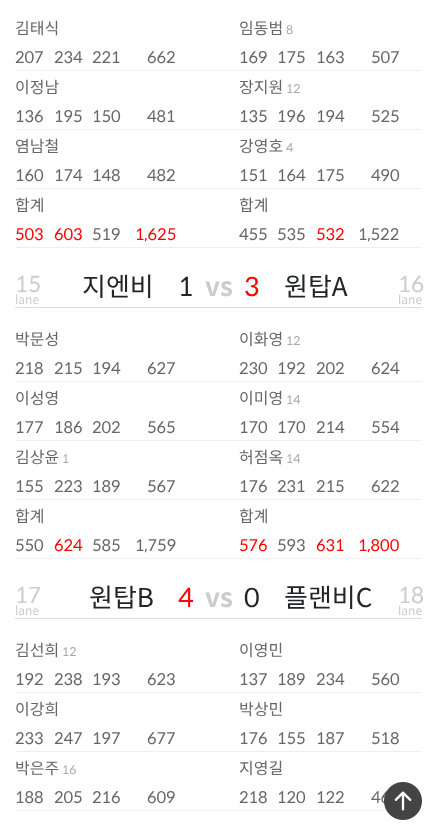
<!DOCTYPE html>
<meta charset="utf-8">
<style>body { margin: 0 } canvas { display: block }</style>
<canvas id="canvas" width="437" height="828"></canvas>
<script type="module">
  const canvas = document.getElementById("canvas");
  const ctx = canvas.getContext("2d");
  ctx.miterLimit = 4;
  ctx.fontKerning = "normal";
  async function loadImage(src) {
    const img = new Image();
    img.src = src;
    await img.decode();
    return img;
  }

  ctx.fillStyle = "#ffffff";
  ctx.fillRect(0, 0, 437, 828);
  ctx.fillStyle = "#eeeeee";
  ctx.fillRect(15, 70, 407, 1);
  ctx.font = "16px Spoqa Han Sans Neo";
  ctx.fillStyle = "#666666";
  ctx.fillText("김태식", 15, 34);
  ctx.fillText("207", 15, 63);
  ctx.fillText("234", 54, 63);
  ctx.fillText("221", 92, 63);
  ctx.fillText("662", 147, 63);
  ctx.fillStyle = "#eeeeee";
  ctx.fillRect(15, 129, 407, 1);
  ctx.fillStyle = "#666666";
  ctx.fillText("이정남", 15, 93);
  ctx.fillText("136", 15, 122);
  ctx.fillText("195", 54, 122);
  ctx.fillText("150", 92, 122);
  ctx.fillText("481", 147, 122);
  ctx.fillStyle = "#eeeeee";
  ctx.fillRect(15, 188, 407, 1);
  ctx.fillStyle = "#666666";
  ctx.fillText("염남철", 15, 152);
  ctx.fillText("160", 15, 181);
  ctx.fillText("174", 54, 181);
  ctx.fillText("148", 92, 181);
  ctx.fillText("482", 147, 181);
  ctx.fillStyle = "#eeeeee";
  ctx.fillRect(15, 247, 407, 1);
  ctx.fillStyle = "#666666";
  ctx.fillText("합계", 15, 211);
  ctx.fillStyle = "#ff0000";
  ctx.fillText("503", 15, 240);
  ctx.fillText("603", 54, 240);
  ctx.fillStyle = "#666666";
  ctx.fillText("519", 92, 240);
  ctx.fillStyle = "#ff0000";
  ctx.fillText("1,625", 135, 240);
  ctx.fillStyle = "#666666";
  ctx.fillText("임동범", 239, 34);
  ctx.font = "12px Spoqa Han Sans Neo";
  ctx.fillStyle = "#aaaaaa";
  ctx.fillText("8", 286, 34);
  ctx.font = "16px Spoqa Han Sans Neo";
  ctx.fillStyle = "#666666";
  ctx.fillText("169", 239, 63);
  ctx.fillText("175", 277, 63);
  ctx.fillText("163", 316, 63);
  ctx.fillText("507", 371, 63);
  ctx.fillText("장지원", 239, 93);
  ctx.font = "12px Spoqa Han Sans Neo";
  ctx.fillStyle = "#aaaaaa";
  ctx.fillText("12", 286, 93);
  ctx.font = "16px Spoqa Han Sans Neo";
  ctx.fillStyle = "#666666";
  ctx.fillText("135", 239, 122);
  ctx.fillText("196", 277, 122);
  ctx.fillText("194", 316, 122);
  ctx.fillText("525", 371, 122);
  ctx.fillText("강영호", 239, 152);
  ctx.font = "12px Spoqa Han Sans Neo";
  ctx.fillStyle = "#aaaaaa";
  ctx.fillText("4", 286, 152);
  ctx.font = "16px Spoqa Han Sans Neo";
  ctx.fillStyle = "#666666";
  ctx.fillText("151", 239, 181);
  ctx.fillText("164", 277, 181);
  ctx.fillText("175", 316, 181);
  ctx.fillText("490", 371, 181);
  ctx.fillText("합계", 239, 211);
  ctx.fillText("455", 239, 240);
  ctx.fillText("535", 277, 240);
  ctx.fillStyle = "#ff0000";
  ctx.fillText("532", 316, 240);
  ctx.fillStyle = "#666666";
  ctx.fillText("1,522", 358, 240);
  ctx.fillStyle = "#dddddd";
  ctx.fillRect(15, 307, 407, 1);
  ctx.font = "22px Spoqa Han Sans Neo";
  ctx.fillStyle = "#cccccc";
  ctx.fillText("15", 15, 292);
  ctx.font = "12px Spoqa Han Sans Neo";
  ctx.fillText("lane", 15, 304);
  ctx.font = "26px Spoqa Han Sans Neo";
  ctx.fillStyle = "#212529";
  ctx.fillText("지엔비", 82, 296);
  ctx.fillText("1", 178, 296);
  ctx.font = "bold 26px Spoqa Han Sans Neo";
  ctx.fillStyle = "#cccccc";
  ctx.fillText("vs", 205, 296);
  ctx.font = "26px Spoqa Han Sans Neo";
  ctx.fillStyle = "#ff0000";
  ctx.fillText("3", 244, 296);
  ctx.fillStyle = "#212529";
  ctx.fillText("원탑A", 284, 296);
  ctx.font = "22px Spoqa Han Sans Neo";
  ctx.fillStyle = "#cccccc";
  ctx.fillText("16", 398, 292);
  ctx.font = "12px Spoqa Han Sans Neo";
  ctx.fillText("lane", 398, 304);
  ctx.fillStyle = "#eeeeee";
  ctx.fillRect(15, 381, 407, 1);
  ctx.font = "16px Spoqa Han Sans Neo";
  ctx.fillStyle = "#666666";
  ctx.fillText("박문성", 15, 345);
  ctx.fillText("218", 15, 374);
  ctx.fillText("215", 54, 374);
  ctx.fillText("194", 92, 374);
  ctx.fillText("627", 147, 374);
  ctx.fillStyle = "#eeeeee";
  ctx.fillRect(15, 440, 407, 1);
  ctx.fillStyle = "#666666";
  ctx.fillText("이성영", 15, 404);
  ctx.fillText("177", 15, 433);
  ctx.fillText("186", 54, 433);
  ctx.fillText("202", 92, 433);
  ctx.fillText("565", 147, 433);
  ctx.fillStyle = "#eeeeee";
  ctx.fillRect(15, 499, 407, 1);
  ctx.fillStyle = "#666666";
  ctx.fillText("김상윤", 15, 463);
  ctx.font = "12px Spoqa Han Sans Neo";
  ctx.fillStyle = "#aaaaaa";
  ctx.fillText("1", 62, 463);
  ctx.font = "16px Spoqa Han Sans Neo";
  ctx.fillStyle = "#666666";
  ctx.fillText("155", 15, 492);
  ctx.fillText("223", 54, 492);
  ctx.fillText("189", 92, 492);
  ctx.fillText("567", 147, 492);
  ctx.fillStyle = "#eeeeee";
  ctx.fillRect(15, 558, 407, 1);
  ctx.fillStyle = "#666666";
  ctx.fillText("합계", 15, 522);
  ctx.fillText("550", 15, 551);
  ctx.fillStyle = "#ff0000";
  ctx.fillText("624", 54, 551);
  ctx.fillStyle = "#666666";
  ctx.fillText("585", 92, 551);
  ctx.fillText("1,759", 135, 551);
  ctx.fillText("이화영", 239, 345);
  ctx.font = "12px Spoqa Han Sans Neo";
  ctx.fillStyle = "#aaaaaa";
  ctx.fillText("12", 286, 345);
  ctx.font = "16px Spoqa Han Sans Neo";
  ctx.fillStyle = "#666666";
  ctx.fillText("230", 239, 374);
  ctx.fillText("192", 277, 374);
  ctx.fillText("202", 316, 374);
  ctx.fillText("624", 371, 374);
  ctx.fillText("이미영", 239, 404);
  ctx.font = "12px Spoqa Han Sans Neo";
  ctx.fillStyle = "#aaaaaa";
  ctx.fillText("14", 286, 404);
  ctx.font = "16px Spoqa Han Sans Neo";
  ctx.fillStyle = "#666666";
  ctx.fillText("170", 239, 433);
  ctx.fillText("170", 277, 433);
  ctx.fillText("214", 316, 433);
  ctx.fillText("554", 371, 433);
  ctx.fillText("허점옥", 239, 463);
  ctx.font = "12px Spoqa Han Sans Neo";
  ctx.fillStyle = "#aaaaaa";
  ctx.fillText("14", 286, 463);
  ctx.font = "16px Spoqa Han Sans Neo";
  ctx.fillStyle = "#666666";
  ctx.fillText("176", 239, 492);
  ctx.fillText("231", 277, 492);
  ctx.fillText("215", 316, 492);
  ctx.fillText("622", 371, 492);
  ctx.fillText("합계", 239, 522);
  ctx.fillStyle = "#ff0000";
  ctx.fillText("576", 239, 551);
  ctx.fillStyle = "#666666";
  ctx.fillText("593", 277, 551);
  ctx.fillStyle = "#ff0000";
  ctx.fillText("631", 316, 551);
  ctx.fillText("1,800", 358, 551);
  ctx.fillStyle = "#dddddd";
  ctx.fillRect(15, 618, 407, 1);
  ctx.font = "22px Spoqa Han Sans Neo";
  ctx.fillStyle = "#cccccc";
  ctx.fillText("17", 15, 603);
  ctx.font = "12px Spoqa Han Sans Neo";
  ctx.fillText("lane", 15, 615);
  ctx.font = "26px Spoqa Han Sans Neo";
  ctx.fillStyle = "#212529";
  ctx.fillText("원탑B", 89, 607);
  ctx.fillStyle = "#ff0000";
  ctx.fillText("4", 178, 607);
  ctx.font = "bold 26px Spoqa Han Sans Neo";
  ctx.fillStyle = "#cccccc";
  ctx.fillText("vs", 205, 607);
  ctx.font = "26px Spoqa Han Sans Neo";
  ctx.fillStyle = "#212529";
  ctx.fillText("0", 244, 607);
  ctx.fillText("플랜비C", 284, 607);
  ctx.font = "22px Spoqa Han Sans Neo";
  ctx.fillStyle = "#cccccc";
  ctx.fillText("18", 398, 603);
  ctx.font = "12px Spoqa Han Sans Neo";
  ctx.fillText("lane", 398, 615);
  ctx.fillStyle = "#eeeeee";
  ctx.fillRect(15, 692, 407, 1);
  ctx.font = "16px Spoqa Han Sans Neo";
  ctx.fillStyle = "#666666";
  ctx.fillText("김선희", 15, 656);
  ctx.font = "12px Spoqa Han Sans Neo";
  ctx.fillStyle = "#aaaaaa";
  ctx.fillText("12", 62, 656);
  ctx.font = "16px Spoqa Han Sans Neo";
  ctx.fillStyle = "#666666";
  ctx.fillText("192", 15, 685);
  ctx.fillText("238", 54, 685);
  ctx.fillText("193", 92, 685);
  ctx.fillText("623", 147, 685);
  ctx.fillStyle = "#eeeeee";
  ctx.fillRect(15, 751, 407, 1);
  ctx.fillStyle = "#666666";
  ctx.fillText("이강희", 15, 715);
  ctx.fillText("233", 15, 744);
  ctx.fillText("247", 54, 744);
  ctx.fillText("197", 92, 744);
  ctx.fillText("677", 147, 744);
  ctx.fillStyle = "#eeeeee";
  ctx.fillRect(15, 810, 407, 1);
  ctx.fillStyle = "#666666";
  ctx.fillText("박은주", 15, 774);
  ctx.font = "12px Spoqa Han Sans Neo";
  ctx.fillStyle = "#aaaaaa";
  ctx.fillText("16", 62, 774);
  ctx.font = "16px Spoqa Han Sans Neo";
  ctx.fillStyle = "#666666";
  ctx.fillText("188", 15, 803);
  ctx.fillText("205", 54, 803);
  ctx.fillText("216", 92, 803);
  ctx.fillText("609", 147, 803);
  ctx.fillText("이영민", 239, 656);
  ctx.fillText("137", 239, 685);
  ctx.fillText("189", 277, 685);
  ctx.fillText("234", 316, 685);
  ctx.fillText("560", 371, 685);
  ctx.fillText("박상민", 239, 715);
  ctx.fillText("176", 239, 744);
  ctx.fillText("155", 277, 744);
  ctx.fillText("187", 316, 744);
  ctx.fillText("518", 371, 744);
  ctx.fillText("지영길", 239, 774);
  ctx.fillText("218", 239, 803);
  ctx.fillText("120", 277, 803);
  ctx.fillText("122", 316, 803);
  ctx.fillText("46", 371, 803);
  ctx.fillStyle = "#ffffff";
  ctx.beginPath();
  ctx.roundRect(385, 788, 38, 32, 16);
  ctx.fill();
  ctx.drawImage(await loadImage("img1.png"), 384, 782, 38, 38);
</script>
